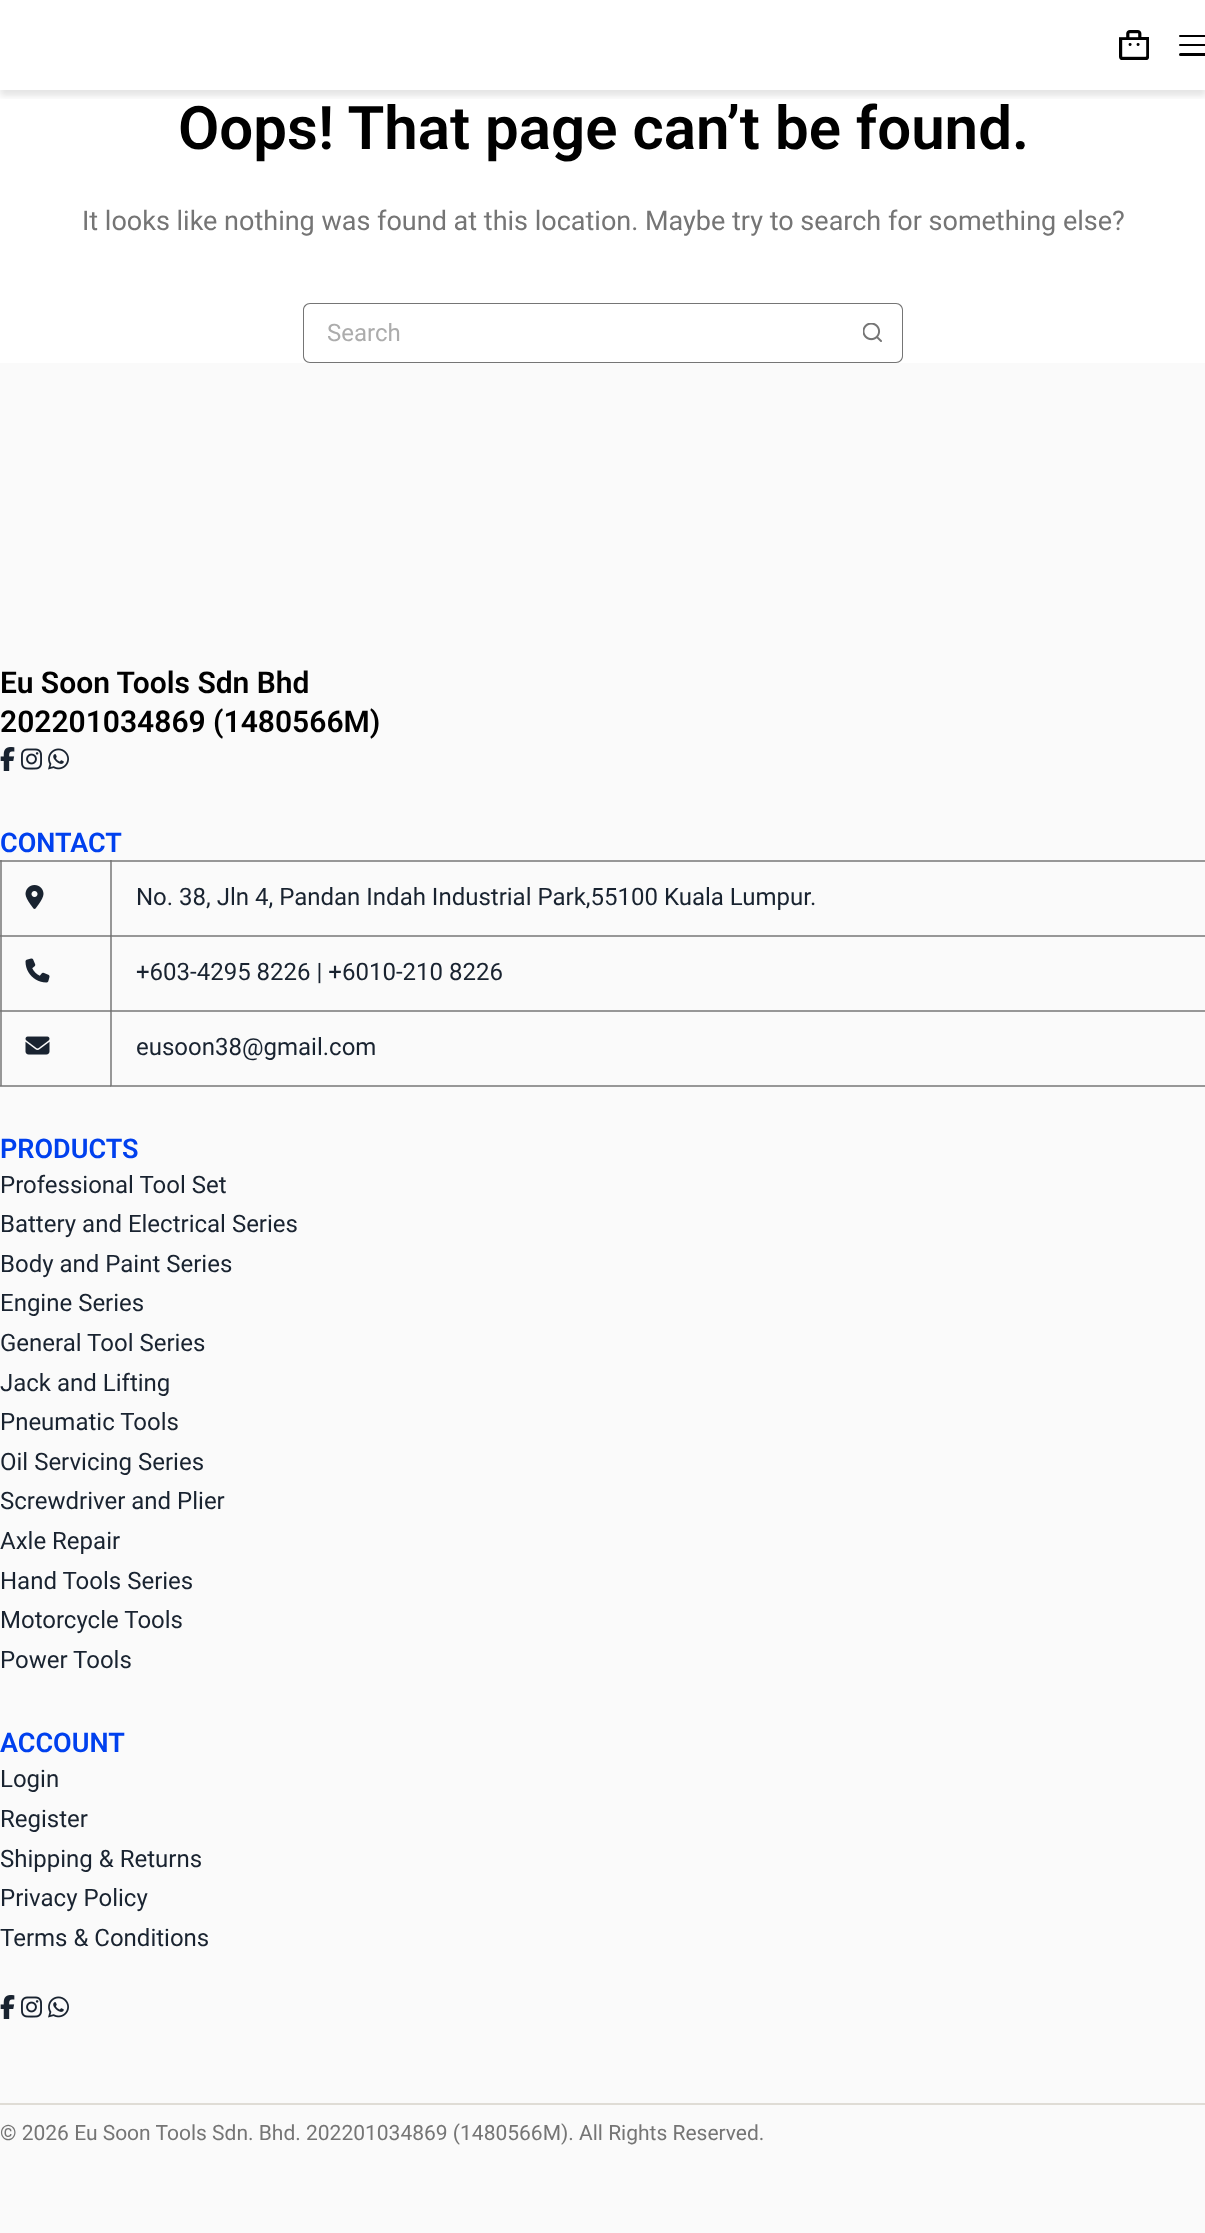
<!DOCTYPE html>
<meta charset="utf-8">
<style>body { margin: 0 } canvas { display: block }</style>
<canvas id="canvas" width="1205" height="2233"></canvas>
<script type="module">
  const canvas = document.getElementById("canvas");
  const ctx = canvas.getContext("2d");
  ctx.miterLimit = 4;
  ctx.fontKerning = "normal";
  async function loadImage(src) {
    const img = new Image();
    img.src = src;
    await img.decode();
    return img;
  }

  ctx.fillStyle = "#ffffff";
  ctx.fillRect(0, 0, 1205, 2233);
  ctx.save();
  ctx.beginPath();
  ctx.rect(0, 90, 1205, 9);
  ctx.clip();
  ctx.fillStyle = "rgba(0, 0, 0, 0.1)";
  ctx.filter = "blur(3px)";
  ctx.beginPath();
  ctx.rect(0, 6, 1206, 90);
  ctx.fill();
  ctx.filter = "none";
  ctx.restore();
  ctx.drawImage(await loadImage("img1.png"), 1119, 30, 30, 30);
  ctx.fillStyle = "#000000";
  ctx.beginPath();
  ctx.roundRect(1179, 35, 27, 2, 1);
  ctx.fill();
  ctx.beginPath();
  ctx.roundRect(1179, 44, 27, 2, 1);
  ctx.fill();
  ctx.beginPath();
  ctx.roundRect(1179, 53, 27, 3, 1.5);
  ctx.fill();
  ctx.font = "600 60px Roboto";
  ctx.fillText("Oops! That page can’t be found.", 178, 149);
  ctx.font = "27px Roboto";
  ctx.fillStyle = "#757575";
  ctx.fillText("It looks like nothing was found at this location. Maybe try to search for something else?", 82, 230);
  ctx.beginPath();
  ctx.moveTo(310, 303);
  ctx.lineTo(843, 303);
  ctx.lineTo(843, 363);
  ctx.lineTo(310, 363);
  ctx.bezierCurveTo(306, 363, 303, 360, 303, 356);
  ctx.lineTo(303, 310);
  ctx.bezierCurveTo(303, 306, 306, 303, 310, 303);
  ctx.closePath();
  ctx.moveTo(310, 304);
  ctx.lineTo(843, 304);
  ctx.lineTo(843, 362);
  ctx.lineTo(310, 362);
  ctx.bezierCurveTo(307, 362, 304, 359, 304, 356);
  ctx.lineTo(304, 310);
  ctx.bezierCurveTo(304, 307, 307, 304, 310, 304);
  ctx.closePath();
  ctx.fill("evenodd");
  ctx.font = "24px Roboto";
  ctx.fillStyle = "#acacac";
  ctx.fillText("Search", 327, 341);
  ctx.fillStyle = "#757575";
  ctx.beginPath();
  ctx.moveTo(843, 303);
  ctx.lineTo(896, 303);
  ctx.bezierCurveTo(900, 303, 903, 306, 903, 310);
  ctx.lineTo(903, 356);
  ctx.bezierCurveTo(903, 360, 900, 363, 896, 363);
  ctx.lineTo(843, 363);
  ctx.closePath();
  ctx.moveTo(843, 304);
  ctx.lineTo(896, 304);
  ctx.bezierCurveTo(899, 304, 902, 307, 902, 310);
  ctx.lineTo(902, 356);
  ctx.bezierCurveTo(902, 359, 899, 362, 896, 362);
  ctx.lineTo(843, 362);
  ctx.closePath();
  ctx.fill("evenodd");
  ctx.drawImage(await loadImage("img2.png"), 863, 323, 19, 19);
  ctx.fillStyle = "#fafafa";
  ctx.fillRect(0, 363, 1205, 1870);
  ctx.fillStyle = "#979797";
  ctx.fillRect(110, 860, 2, 76);
  ctx.fillRect(0, 935, 111, 2);
  ctx.fillRect(110, 935, 2, 76);
  ctx.fillRect(0, 1010, 111, 2);
  ctx.fillRect(110, 1010, 2, 76);
  ctx.fillRect(0, 860, 2, 226);
  ctx.fillStyle = "#7e7e7e";
  ctx.fillRect(0, 936, 2, 1);
  ctx.fillStyle = "#7a7a7a";
  ctx.fillRect(0, 935, 2, 1);
  ctx.fillStyle = "#7e7e7e";
  ctx.fillRect(0, 1011, 2, 1);
  ctx.fillStyle = "#7a7a7a";
  ctx.fillRect(0, 1010, 2, 1);
  ctx.fillStyle = "#dfdcd5";
  ctx.fillRect(0, 2103, 1205, 2);
  ctx.font = "600 30px Roboto";
  ctx.fillStyle = "#000000";
  ctx.fillText("Eu Soon Tools Sdn Bhd", 0, 693);
  ctx.fillText("202201034869 (1480566M)", 0, 732);
  ctx.drawImage(await loadImage("img3.png"), 0, 747, 15, 24);
  ctx.drawImage(await loadImage("img4.png"), 21, 748, 21, 22);
  ctx.drawImage(await loadImage("img5.png"), 48, 748, 21, 22);
  ctx.font = "600 27px Roboto";
  ctx.fillStyle = "#0040ee";
  ctx.fillText("CONTACT", 0, 852);
  ctx.fillStyle = "#979797";
  ctx.fillRect(0, 860, 1205, 2);
  ctx.fillStyle = "#7e7e7e";
  ctx.fillRect(0, 860, 2, 2);
  ctx.fillStyle = "#979797";
  ctx.fillRect(0, 1085, 1205, 2);
  ctx.fillStyle = "#7e7e7e";
  ctx.fillRect(0, 1085, 2, 1);
  ctx.drawImage(await loadImage("img6.png"), 25, 885, 19, 24);
  ctx.fillRect(110, 860, 2, 2);
  ctx.fillStyle = "#7a7a7a";
  ctx.fillRect(110, 860, 1, 2);
  ctx.font = "24px Roboto";
  ctx.fillStyle = "#192330";
  ctx.fillText("No. 38, Jln 4, Pandan Indah Industrial Park,55100 Kuala Lumpur.", 136, 905);
  ctx.drawImage(await loadImage("img7.png"), 25, 958, 25, 25);
  ctx.fillStyle = "#979797";
  ctx.fillRect(110, 935, 1095, 2);
  ctx.fillStyle = "#7e7e7e";
  ctx.fillRect(110, 936, 2, 1);
  ctx.fillStyle = "#787878";
  ctx.fillRect(110, 935, 2, 1);
  ctx.fillRect(110, 935, 1, 2);
  ctx.fillStyle = "#192330";
  ctx.fillText("+603-4295 8226 | +6010-210 8226", 136, 980);
  ctx.drawImage(await loadImage("img8.png"), 25, 1036, 25, 19);
  ctx.fillStyle = "#979797";
  ctx.fillRect(110, 1010, 1095, 2);
  ctx.fillStyle = "#7e7e7e";
  ctx.fillRect(110, 1011, 2, 1);
  ctx.fillStyle = "#787878";
  ctx.fillRect(110, 1010, 2, 1);
  ctx.fillRect(110, 1010, 1, 2);
  ctx.fillStyle = "#868686";
  ctx.fillRect(110, 1085, 1, 2);
  ctx.fillStyle = "#7e7e7e";
  ctx.fillRect(110, 1085, 2, 1);
  ctx.fillStyle = "#7a7a7a";
  ctx.fillRect(110, 1085, 1, 1);
  ctx.fillStyle = "#192330";
  ctx.fillText("eusoon38@gmail.com", 136, 1055);
  ctx.font = "600 27px Roboto";
  ctx.fillStyle = "#0040ee";
  ctx.fillText("PRODUCTS", 0, 1158);
  ctx.font = "24px Roboto";
  ctx.fillStyle = "#192330";
  ctx.fillText("Professional Tool Set", 0, 1193);
  ctx.fillText("Battery and Electrical Series", 0, 1232);
  ctx.fillText("Body and Paint Series", 0, 1272);
  ctx.fillText("Engine Series", 0, 1311);
  ctx.fillText("General Tool Series", 0, 1351);
  ctx.fillText("Jack and Lifting", 0, 1391);
  ctx.fillText("Pneumatic Tools", 0, 1430);
  ctx.fillText("Oil Servicing Series", 0, 1470);
  ctx.fillText("Screwdriver and Plier", 0, 1509);
  ctx.fillText("Axle Repair", 0, 1549);
  ctx.fillText("Hand Tools Series", 0, 1589);
  ctx.fillText("Motorcycle Tools", 0, 1628);
  ctx.fillText("Power Tools", 0, 1668);
  ctx.font = "600 27px Roboto";
  ctx.fillStyle = "#0040ee";
  ctx.fillText("ACCOUNT", 0, 1752);
  ctx.font = "24px Roboto";
  ctx.fillStyle = "#192330";
  ctx.fillText("Login", 0, 1787);
  ctx.fillText("Register", 0, 1827);
  ctx.fillText("Shipping & Returns", 0, 1867);
  ctx.fillText("Privacy Policy", 0, 1906);
  ctx.fillText("Terms & Conditions", 0, 1946);
  ctx.drawImage(await loadImage("img3.png"), 0, 1995, 15, 24);
  ctx.drawImage(await loadImage("img4.png"), 21, 1996, 21, 22);
  ctx.drawImage(await loadImage("img5.png"), 48, 1996, 21, 22);
  ctx.font = "21px Roboto";
  ctx.fillStyle = "#757575";
  ctx.fillText("© 2026 Eu Soon Tools Sdn. Bhd. 202201034869 (1480566M). All Rights Reserved.", 0, 2140);
</script>
